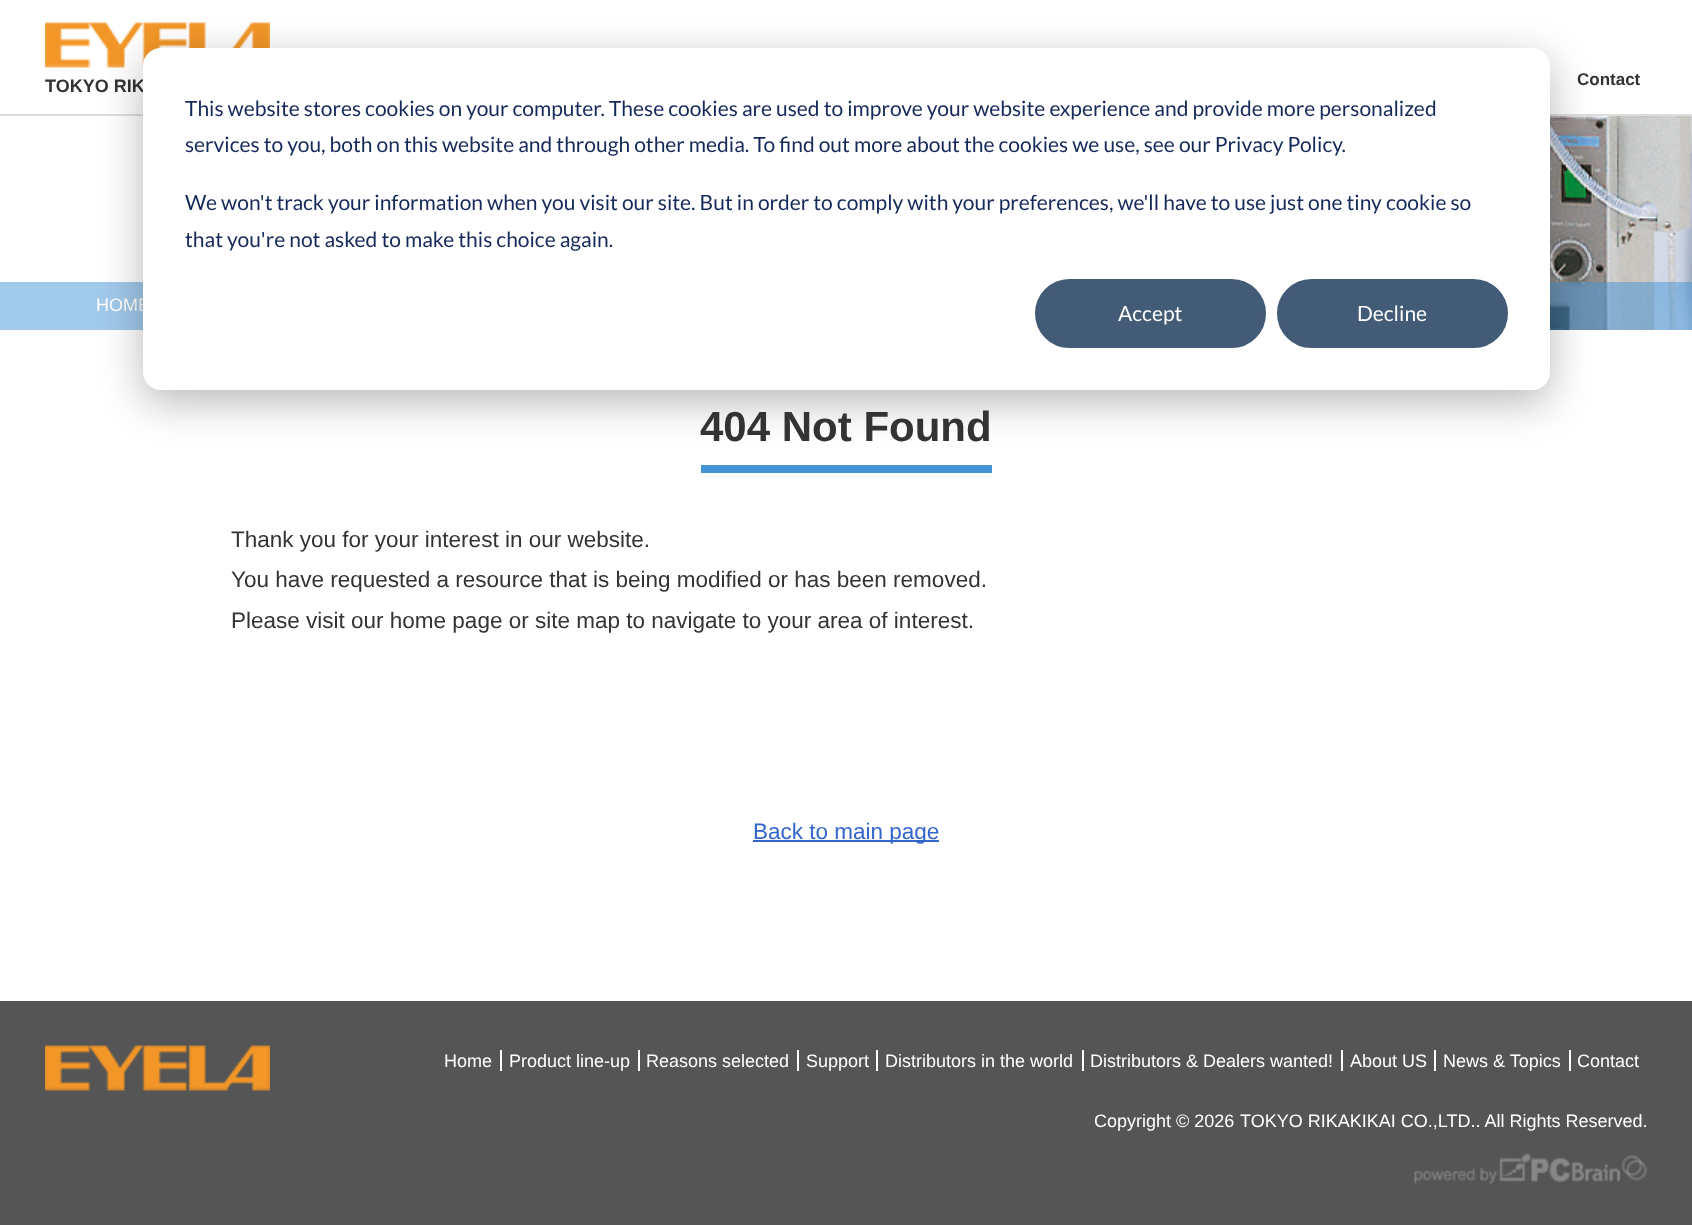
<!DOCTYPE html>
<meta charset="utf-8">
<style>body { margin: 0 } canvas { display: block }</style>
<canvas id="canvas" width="1692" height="1225"></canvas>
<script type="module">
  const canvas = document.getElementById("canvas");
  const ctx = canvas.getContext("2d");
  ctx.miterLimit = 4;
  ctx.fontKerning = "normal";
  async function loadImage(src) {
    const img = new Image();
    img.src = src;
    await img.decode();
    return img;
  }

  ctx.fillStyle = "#ffffff";
  ctx.fillRect(0, 0, 1692, 1225);
  ctx.fillStyle = "#dddddd";
  ctx.fillRect(0, 114, 1692, 2);
  ctx.drawImage(await loadImage("img1.png"), 45, 22, 225, 46);
  ctx.font = "bold 18px Liberation Sans";
  ctx.fillStyle = "#333333";
  ctx.fillText("TOKYO RIK", 45, 92);
  ctx.font = "bold 17px Liberation Sans";
  ctx.fillText("Contact", 1577, 85);
  ctx.drawImage(await loadImage("img2.png"), 1550, 116, 142, 214);
  ctx.fillStyle = "rgba(67, 148, 213, 0.5)";
  ctx.fillRect(0, 282, 1692, 48);
  ctx.font = "18px Liberation Sans";
  ctx.fillStyle = "#ffffff";
  ctx.fillText("HOME", 96, 311);
  ctx.fillStyle = "#4394d5";
  ctx.fillRect(701, 465, 291, 8);
  ctx.fillStyle = "rgba(0, 0, 0, 0.28)";
  ctx.filter = "blur(21px)";
  ctx.beginPath();
  ctx.roundRect(143, 60, 1407, 342, 18);
  ctx.fill();
  ctx.filter = "none";
  ctx.fillStyle = "#ffffff";
  ctx.beginPath();
  ctx.roundRect(143, 48, 1407, 342, 18);
  ctx.fill();
  ctx.font = "21px Lato";
  ctx.fillStyle = "#15295a";
  ctx.fillText("This website stores cookies on your computer. These cookies are used to improve your website experience and provide more personalized", 185, 116);
  ctx.fillText("services to you, both on this website and through other media. To find out more about the cookies we use, see our Privacy Policy.", 185, 152);
  ctx.fillText("We won't track your information when you visit our site. But in order to comply with your preferences, we'll have to use just one tiny cookie so", 185, 210);
  ctx.fillText("that you're not asked to make this choice again.", 185, 247);
  ctx.fillStyle = "#425b76";
  ctx.beginPath();
  ctx.roundRect(1036, 280, 229, 67, 33.5);
  ctx.fill();
  ctx.strokeStyle = "#425b76";
  ctx.lineWidth = 2;
  ctx.stroke();
  ctx.fillStyle = "#ffffff";
  ctx.fillText("Accept", 1118, 321);
  ctx.fillStyle = "#425b76";
  ctx.beginPath();
  ctx.roundRect(1278, 280, 229, 67, 33.5);
  ctx.fill();
  ctx.stroke();
  ctx.fillStyle = "#ffffff";
  ctx.fillText("Decline", 1357, 321);
  ctx.font = "bold 42px Liberation Sans";
  ctx.fillStyle = "#333333";
  ctx.fillText("404 Not Found", 700, 441);
  ctx.font = "22.5px Liberation Sans";
  ctx.fillText("Thank you for your interest in our website.", 231, 547);
  ctx.fillText("You have requested a resource that is being modified or has been removed.", 231, 587);
  ctx.fillText("Please visit our home page or site map to navigate to your area of interest.", 231, 628);
  ctx.fillStyle = "#3366cc";
  ctx.fillRect(753, 840, 186, 2);
  ctx.fillText("Back to main page", 753, 839);
  ctx.fillStyle = "#555555";
  ctx.fillRect(0, 1001, 1692, 224);
  ctx.drawImage(await loadImage("img3.png"), 45, 1045, 225, 46);
  ctx.font = "18px Liberation Sans";
  ctx.fillStyle = "#ffffff";
  ctx.fillText("Home", 444, 1067);
  ctx.fillRect(500, 1050, 2, 21);
  ctx.fillText("Product line-up", 509, 1067);
  ctx.fillRect(638, 1050, 2, 21);
  ctx.fillText("Reasons selected", 646, 1067);
  ctx.fillRect(797, 1050, 2, 21);
  ctx.fillText("Support", 806, 1067);
  ctx.fillRect(876, 1050, 2, 21);
  ctx.fillText("Distributors in the world", 885, 1067);
  ctx.fillRect(1082, 1050, 2, 21);
  ctx.fillText("Distributors & Dealers wanted!", 1090, 1067);
  ctx.fillRect(1341, 1050, 2, 21);
  ctx.fillText("About US", 1350, 1067);
  ctx.fillRect(1434, 1050, 2, 21);
  ctx.fillText("News & Topics", 1443, 1067);
  ctx.fillRect(1569, 1050, 2, 21);
  ctx.fillText("Contact", 1577, 1067);
  ctx.fillText("Copyright © 2026", 1094, 1127);
  ctx.fillText("TOKYO RIKAKIKAI CO.,LTD.. All Rights Reserved.", 1240, 1127);
  ctx.drawImage(await loadImage("img4.png"), 1414, 1153, 206, 31);
  ctx.drawImage(await loadImage("img5.png"), 1621, 1155, 26, 26);
</script>
